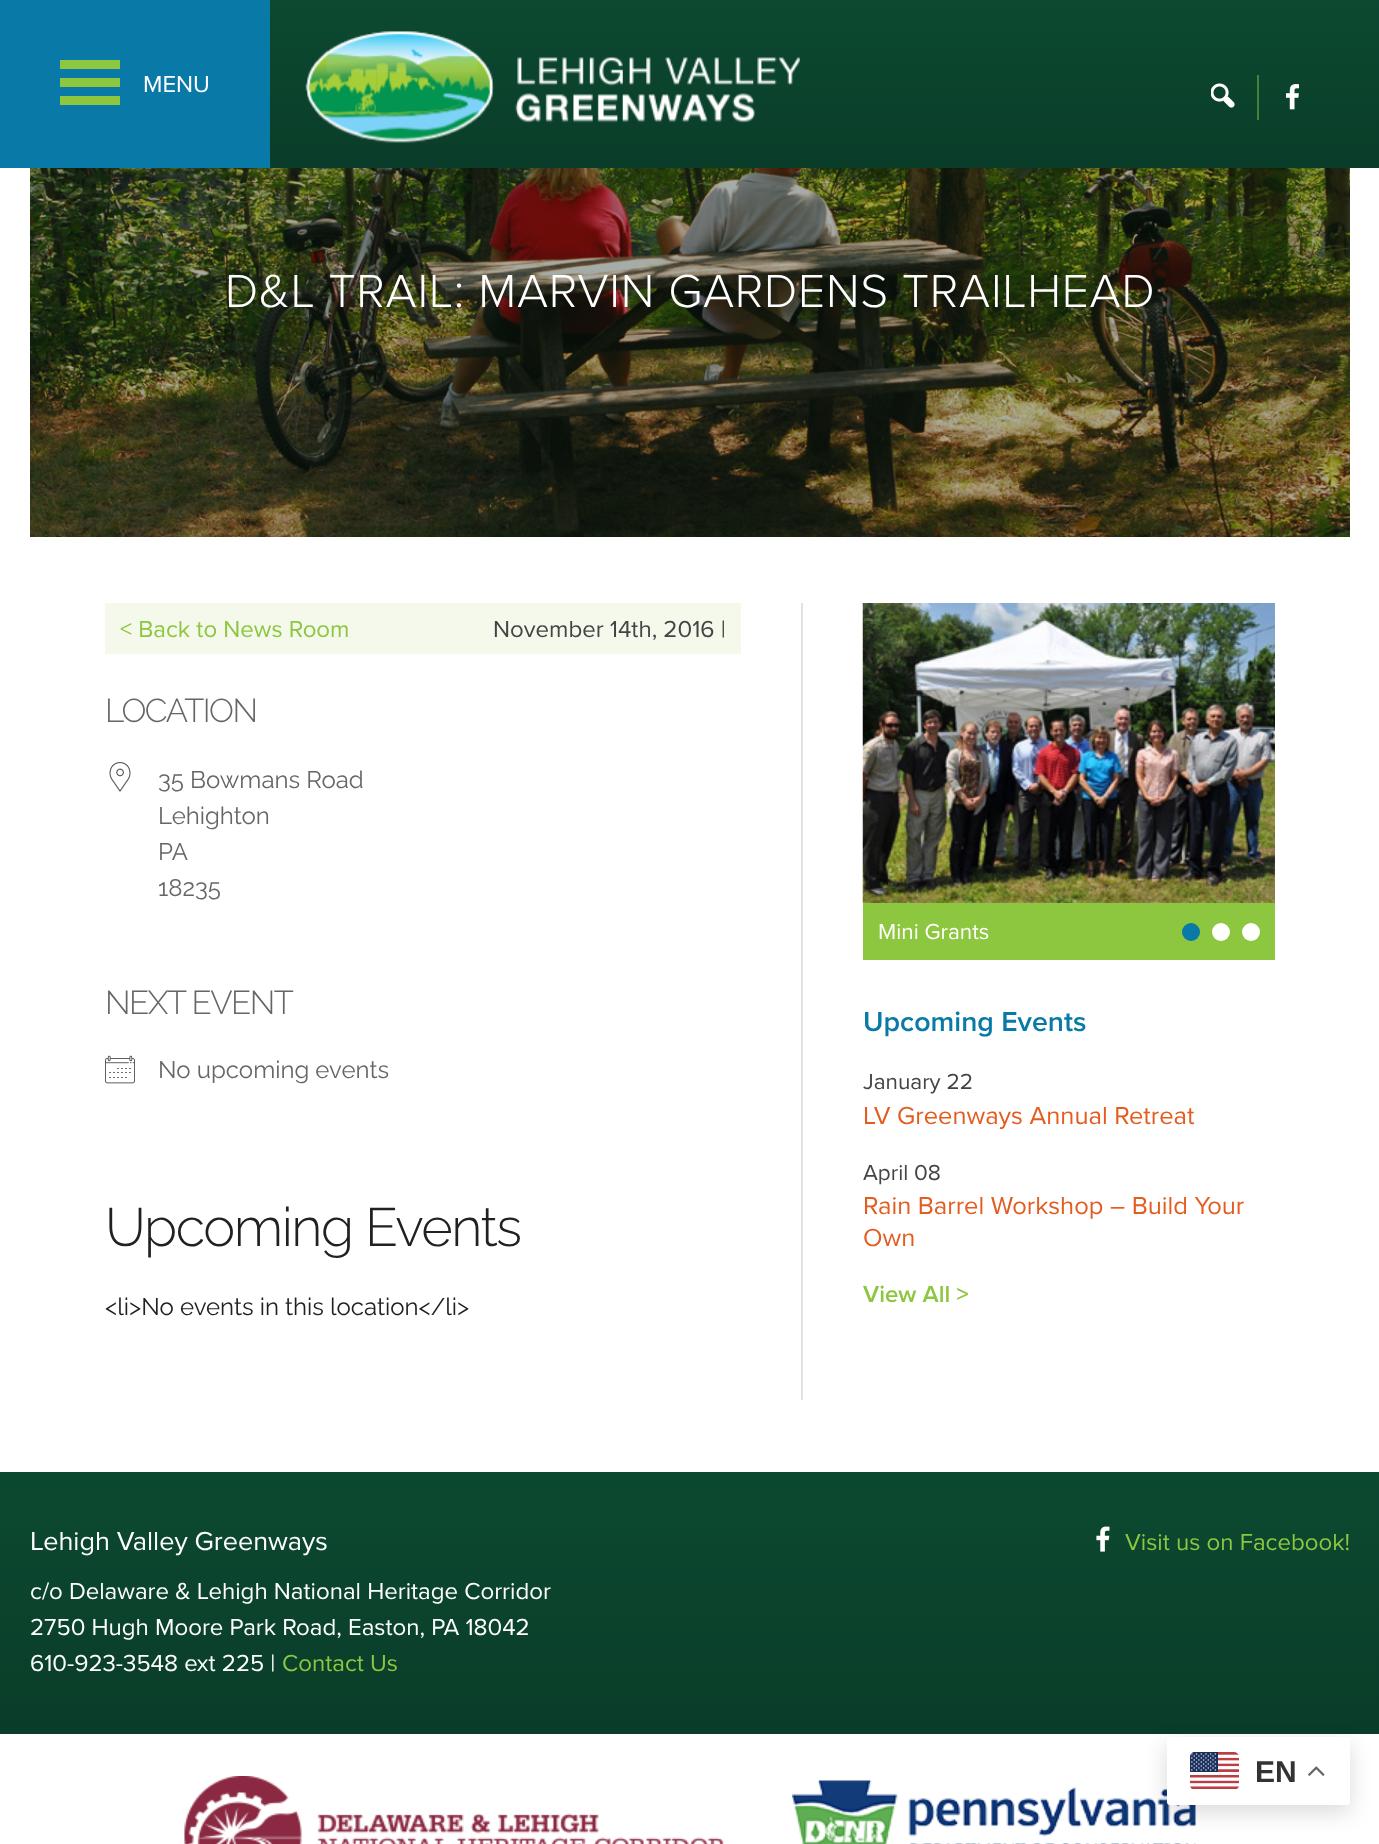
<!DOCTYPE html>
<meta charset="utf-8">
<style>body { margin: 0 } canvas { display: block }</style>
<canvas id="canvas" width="1379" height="1844"></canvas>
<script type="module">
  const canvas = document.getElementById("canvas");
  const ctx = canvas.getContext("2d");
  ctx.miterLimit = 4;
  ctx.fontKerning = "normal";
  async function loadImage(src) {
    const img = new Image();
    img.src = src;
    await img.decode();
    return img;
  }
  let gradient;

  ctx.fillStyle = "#ffffff";
  ctx.fillRect(0, 0, 1379, 1844);
  gradient = ctx.createLinearGradient(690, 0, 690, 168);
  gradient.addColorStop(0, "#0c4931");
  gradient.addColorStop(1, "#0a3d29");
  ctx.fillStyle = gradient;
  ctx.fillRect(270, 0, 1109, 168);
  ctx.fillStyle = "#0979a7";
  ctx.fillRect(0, 0, 270, 168);
  ctx.fillStyle = "#8dc63f";
  ctx.fillRect(60, 60, 60, 9);
  ctx.fillRect(60, 78, 60, 9);
  ctx.fillRect(60, 96, 60, 9);
  ctx.font = "24px Proxima Nova";
  ctx.fillStyle = "#ffffff";
  ctx.fillText("MENU", 143, 92);
  ctx.drawImage(await loadImage("img1.png"), 305, 31, 495, 112);
  ctx.fillStyle = "#468137";
  ctx.fillRect(1257, 75, 2, 45);
  ctx.drawImage(await loadImage("img2.png"), 1211, 83, 24, 25);
  ctx.letterSpacing = "1px";
  ctx.font = "27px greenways";
  ctx.fillStyle = "#ffffff";
  ctx.fillText("F", 1286, 107);
  ctx.drawImage(await loadImage("img3.png"), 30, 168, 1320, 369);
  ctx.letterSpacing = "0.75px";
  ctx.font = "300 48px Proxima Nova";
  ctx.fillText("D&L TRAIL: MARVIN GARDENS TRAILHEAD", 225, 307);
  ctx.fillStyle = "#e1e1e1";
  ctx.fillRect(801, 603, 2, 797);
  ctx.fillStyle = "#f4f9ec";
  ctx.fillRect(105, 603, 636, 51);
  ctx.letterSpacing = "0px";
  ctx.font = "24px Proxima Nova";
  ctx.fillStyle = "#8dc63f";
  ctx.fillText("< Back to News Room", 120, 637);
  ctx.fillStyle = "#444444";
  ctx.fillText("November 14th, 2016 |", 493, 637);
  ctx.letterSpacing = "-1.5px";
  ctx.font = "300 33px Raleway";
  ctx.fillStyle = "#666666";
  ctx.fillText("LOCATION", 105, 722);
  ctx.drawImage(await loadImage("img4.png"), 109, 762, 22, 30);
  ctx.letterSpacing = "0px";
  ctx.font = "24px Raleway";
  ctx.fillText("35 Bowmans Road", 158, 788);
  ctx.fillText("Lehighton", 158, 824);
  ctx.fillText("PA", 158, 860);
  ctx.fillText("18235", 158, 896);
  ctx.letterSpacing = "-1.5px";
  ctx.font = "300 33px Raleway";
  ctx.fillText("NEXT EVENT", 105, 1014);
  ctx.drawImage(await loadImage("img5.png"), 105, 1055, 30, 29);
  ctx.letterSpacing = "0px";
  ctx.font = "24px Raleway";
  ctx.fillText("No upcoming events", 158, 1078);
  ctx.letterSpacing = "-1.5px";
  ctx.font = "300 54px Raleway";
  ctx.fillStyle = "#212121";
  ctx.fillText("Upcoming Events", 105, 1246);
  ctx.letterSpacing = "0px";
  ctx.font = "24px Raleway";
  ctx.fillText("<li>No events in this location<\/li>", 105, 1315);
  ctx.fillStyle = "#8dc63f";
  ctx.fillRect(863, 903, 412, 57);
  ctx.drawImage(await loadImage("img6.png"), 862, 603, 413, 300);
  ctx.font = "22.5px Proxima Nova";
  ctx.fillStyle = "#ffffff";
  ctx.fillText("Mini Grants", 878, 939);
  ctx.fillStyle = "#0979a7";
  ctx.beginPath();
  ctx.arc(1191, 932, 9, 0, Math.PI * 2);
  ctx.fill();
  ctx.fillStyle = "#ffffff";
  ctx.beginPath();
  ctx.arc(1221, 932, 9, 0, Math.PI * 2);
  ctx.fill();
  ctx.beginPath();
  ctx.arc(1251, 932, 9, 0, Math.PI * 2);
  ctx.fill();
  ctx.font = "600 28.5px Proxima Nova";
  ctx.fillStyle = "#0979a7";
  ctx.fillText("Upcoming Events", 863, 1031);
  ctx.font = "22.5px Proxima Nova";
  ctx.fillStyle = "#444444";
  ctx.fillText("January 22", 863, 1089);
  ctx.font = "25.5px Proxima Nova";
  ctx.fillStyle = "#e35c20";
  ctx.fillText("LV Greenways Annual Retreat", 863, 1124);
  ctx.font = "22.5px Proxima Nova";
  ctx.fillStyle = "#444444";
  ctx.fillText("April 08", 863, 1180);
  ctx.font = "25.5px Proxima Nova";
  ctx.fillStyle = "#e35c20";
  ctx.fillText("Rain Barrel Workshop – Build Your", 863, 1214);
  ctx.fillText("Own", 863, 1246);
  ctx.font = "600 24px Proxima Nova";
  ctx.fillStyle = "#8dc63f";
  ctx.fillText("View All >", 863, 1302);
  gradient = ctx.createLinearGradient(690, 1472, 690, 1734);
  gradient.addColorStop(0, "#0c4931");
  gradient.addColorStop(1, "#0a3d29");
  ctx.fillStyle = gradient;
  ctx.fillRect(0, 1472, 1379, 262);
  ctx.font = "27px Proxima Nova";
  ctx.fillStyle = "#ffffff";
  ctx.fillText("Lehigh Valley Greenways", 30, 1550);
  ctx.font = "24px Proxima Nova";
  ctx.fillText("c/o Delaware & Lehigh National Heritage Corridor", 30, 1599);
  ctx.fillText("2750 Hugh Moore Park Road, Easton, PA 18042", 30, 1635);
  ctx.fillText("610-923-3548 ext 225 |", 30, 1671);
  ctx.fillStyle = "#8dc63f";
  ctx.fillText("Contact Us", 282, 1671);
  ctx.drawImage(await loadImage("img7.png"), 1096, 1526, 14, 26);
  ctx.fillText("Visit us on Facebook!", 1125, 1550);
  ctx.drawImage(await loadImage("img11.png"), 792, 1780, 404, 64);
  ctx.fillStyle = "rgba(0, 0, 0, 0.15)";
  ctx.filter = "blur(11px)";
  ctx.beginPath();
  ctx.roundRect(1167, 1745, 183, 67, 3);
  ctx.fill();
  ctx.filter = "none";
  ctx.fillStyle = "#ffffff";
  ctx.beginPath();
  ctx.roundRect(1167, 1737, 183, 68, 3);
  ctx.fill();
  ctx.drawImage(await loadImage("img8.png"), 1190, 1752, 49, 37);
  ctx.font = "bold 30px Liberation Sans";
  ctx.fillStyle = "#333333";
  ctx.fillText("EN", 1255, 1782);
  ctx.drawImage(await loadImage("img9.png"), 1308, 1766, 17, 10);
  ctx.drawImage(await loadImage("img10.png"), 184, 1776, 540, 68);
</script>
